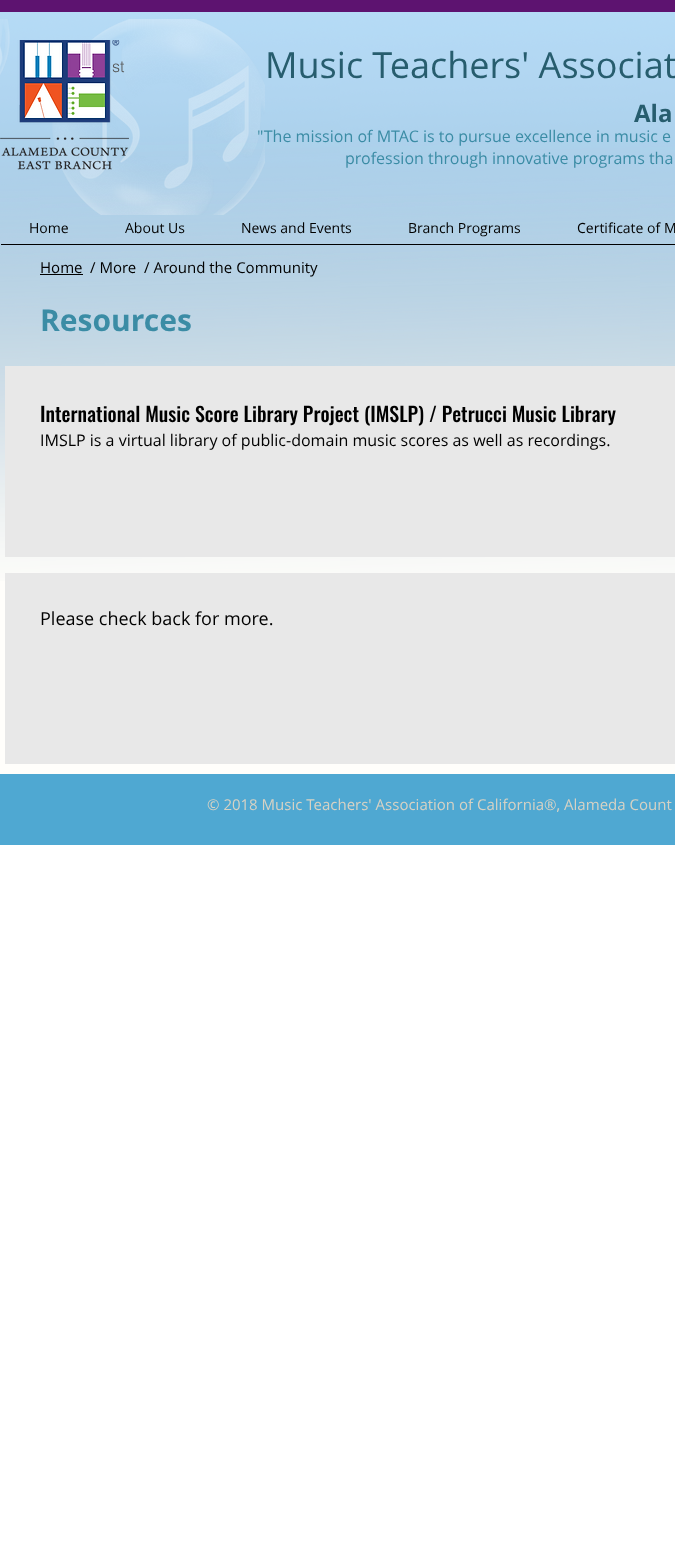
<!DOCTYPE html>
<meta charset="utf-8">
<style>body { margin: 0 } canvas { display: block }</style>
<canvas id="canvas" width="675" height="1568"></canvas>
<script type="module">
  const canvas = document.getElementById("canvas");
  const ctx = canvas.getContext("2d");
  ctx.miterLimit = 4;
  ctx.fontKerning = "normal";
  async function loadImage(src) {
    const img = new Image();
    img.src = src;
    await img.decode();
    return img;
  }

  ctx.fillStyle = "#ffffff";
  ctx.fillRect(0, 0, 675, 1568);
  ctx.fillStyle = "#fffefb";
  ctx.fillRect(0, 137, 675, 637);
  ctx.drawImage(await loadImage("img1.png"), 0, 12, 675, 569);
  ctx.fillStyle = "#5d1370";
  ctx.fillRect(0, 0, 675, 12);
  ctx.font = "300 16px helvetica";
  ctx.fillStyle = "#545454";
  ctx.fillText("st", 112, 72);
  ctx.font = "16px Open Sans";
  ctx.fillStyle = "#3b8ca5";
  ctx.fillText("\"The mission of MTAC is to pursue excellence in music e", 257, 142);
  ctx.drawImage(await loadImage("img2.png"), 0, 19, 265, 196);
  ctx.drawImage(await loadImage("img3.png"), 0, 40, 129, 130);
  ctx.font = "36px Open Sans";
  ctx.fillStyle = "#275d6e";
  ctx.fillText("Music Teachers' Associat", 265, 78);
  ctx.font = "bold 24px Open Sans";
  ctx.fillText("Ala", 634, 122);
  ctx.font = "16px Open Sans";
  ctx.fillStyle = "#3b8ca5";
  ctx.fillText("profession through innovative programs tha", 345, 164);
  ctx.font = "14px Open Sans";
  ctx.fillStyle = "#000000";
  ctx.fillText("Home", 29, 233);
  ctx.fillText("About Us", 125, 233);
  ctx.fillText("News and Events", 241, 233);
  ctx.fillText("Branch Programs", 408, 233);
  ctx.fillText("Certificate of M", 577, 233);
  ctx.fillRect(1, 244, 674, 1);
  ctx.font = "15px Open Sans";
  ctx.fillText("Home", 40, 273);
  ctx.fillRect(40, 274, 43, 1);
  ctx.fillText("/ More  / Around the Community", 90, 273);
  ctx.font = "bold 30px Open Sans";
  ctx.fillStyle = "#3b8ca5";
  ctx.fillText("Resources", 40, 331);
  ctx.fillStyle = "#e8e8e8";
  ctx.fillRect(5, 366, 670, 191);
  ctx.font = "500 20px Oswald";
  ctx.fillStyle = "#000000";
  ctx.fillText("International Music Score Library Project (IMSLP) / Petrucci Music Library", 40, 422);
  ctx.font = "16px Open Sans";
  ctx.fillText("IMSLP is a virtual library of public-domain music scores as well as recordings.", 40, 446);
  ctx.fillStyle = "#e8e8e8";
  ctx.fillRect(5, 573, 670, 191);
  ctx.font = "18px Open Sans";
  ctx.fillStyle = "#000000";
  ctx.fillText("Please check back for more.", 40, 625);
  ctx.fillStyle = "#4fa8d2";
  ctx.fillRect(0, 774, 675, 71);
  ctx.font = "15px Open Sans";
  ctx.fillStyle = "#d7d2c4";
  ctx.fillText("© 2018 Music Teachers' Association of California®, Alameda Count", 207, 810);
</script>
